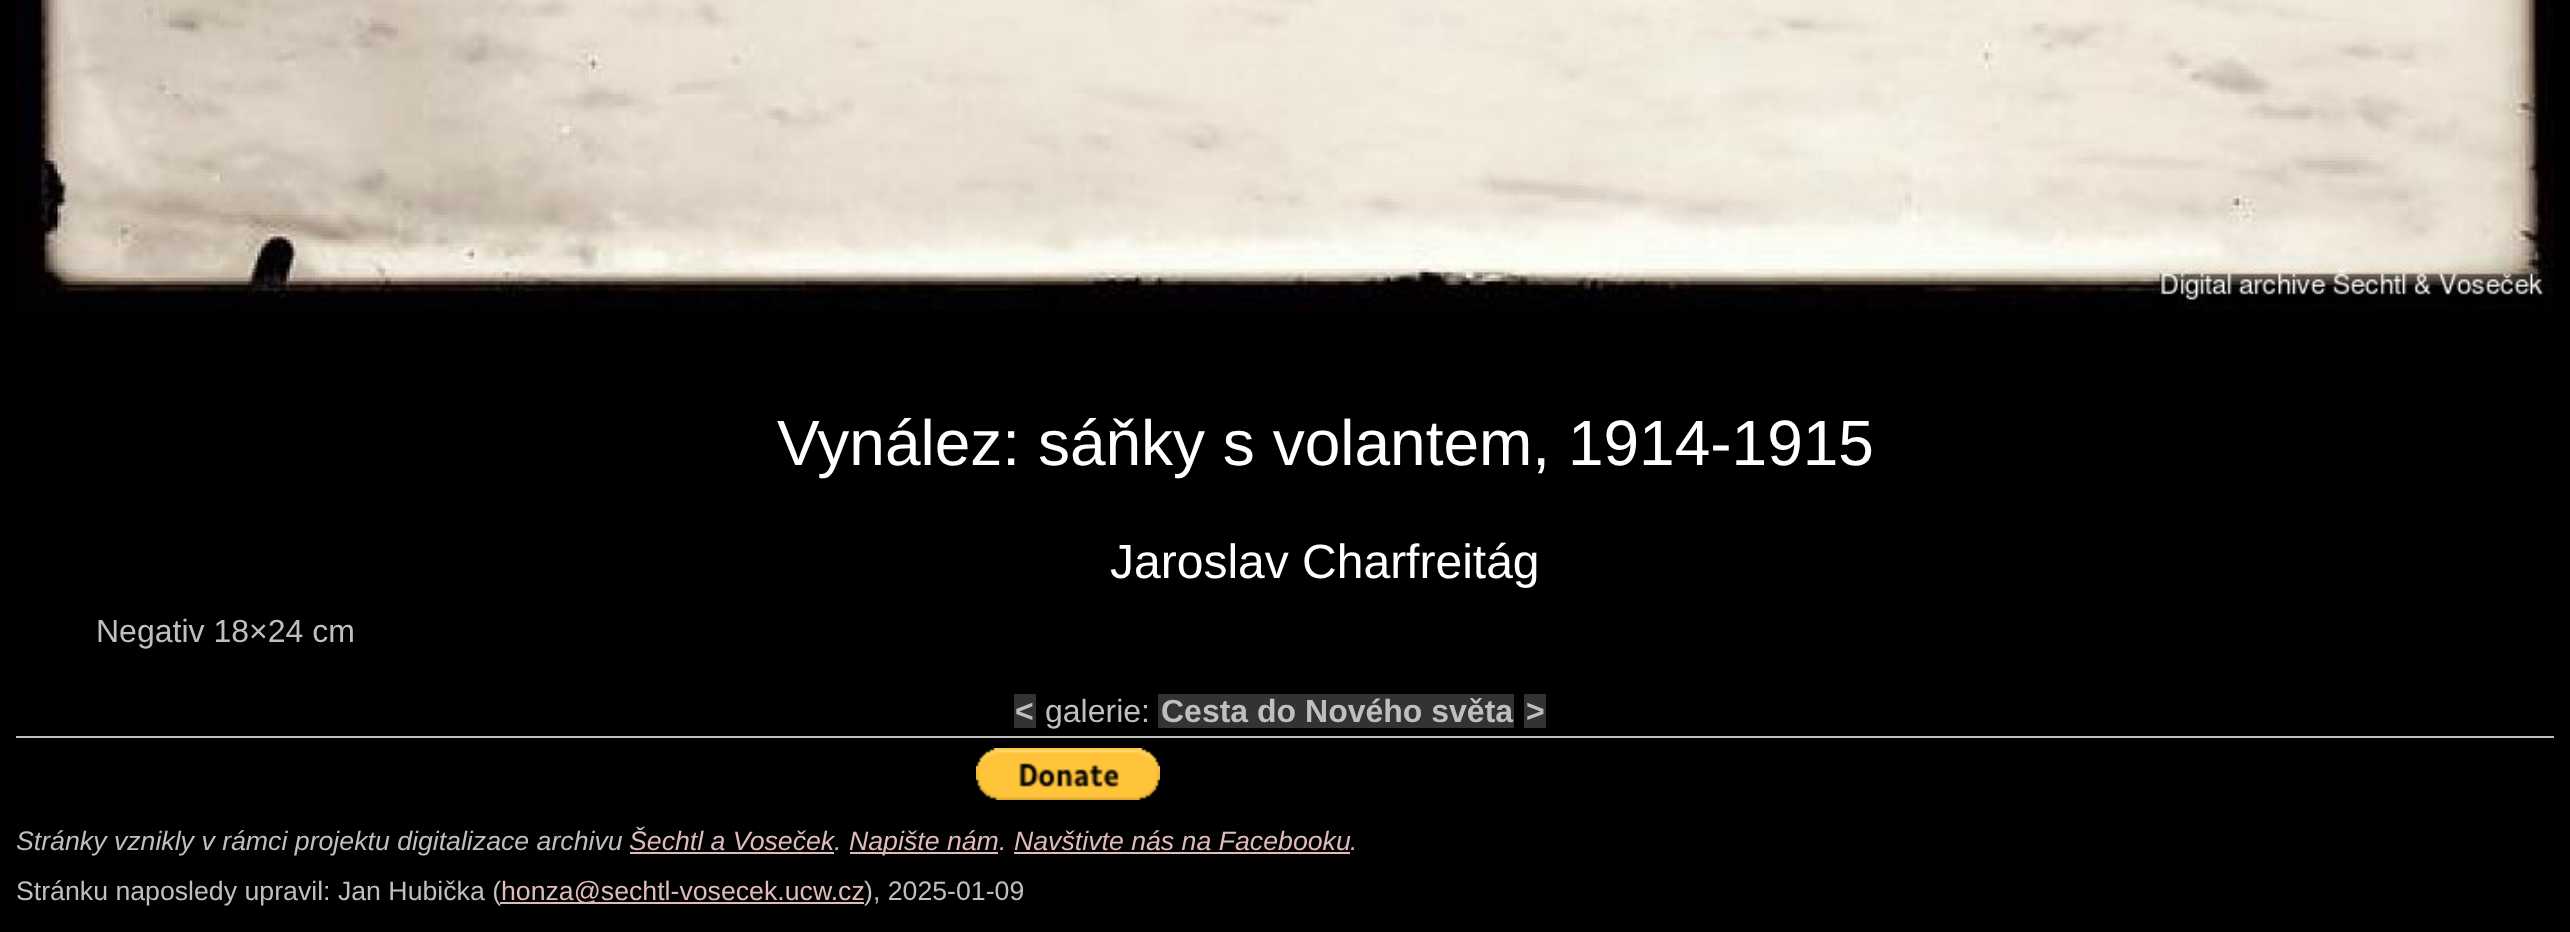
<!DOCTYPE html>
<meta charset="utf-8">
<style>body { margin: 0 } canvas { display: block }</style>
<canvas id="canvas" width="2570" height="932"></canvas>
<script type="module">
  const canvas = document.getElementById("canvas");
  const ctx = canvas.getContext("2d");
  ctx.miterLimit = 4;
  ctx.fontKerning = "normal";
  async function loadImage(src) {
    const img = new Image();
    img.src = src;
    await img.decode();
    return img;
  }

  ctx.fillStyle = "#000000";
  ctx.fillRect(0, 0, 2570, 932);
  ctx.drawImage(await loadImage("img1.png"), 16, 0, 2538, 310);
  ctx.font = "64px Liberation Sans";
  ctx.fillStyle = "#ffffff";
  ctx.fillText("Vynález: sáňky s volantem, 1914-1915", 777, 465);
  ctx.font = "48px Liberation Sans";
  ctx.fillText("Jaroslav Charfreitág", 1110, 578);
  ctx.font = "32px Liberation Sans";
  ctx.fillStyle = "#bfbfbf";
  ctx.fillText("Negativ 18×24 cm", 96, 642);
  ctx.fillStyle = "#333333";
  ctx.fillRect(1014, 694, 22, 34);
  ctx.font = "bold 32px Liberation Sans";
  ctx.fillStyle = "#bfbfbf";
  ctx.fillText("<", 1015, 722);
  ctx.font = "32px Liberation Sans";
  ctx.fillText("galerie:", 1045, 722);
  ctx.fillStyle = "#333333";
  ctx.fillRect(1158, 694, 356, 34);
  ctx.font = "bold 32px Liberation Sans";
  ctx.fillStyle = "#bfbfbf";
  ctx.fillText("Cesta do Nového světa", 1161, 722);
  ctx.fillStyle = "#333333";
  ctx.fillRect(1524, 694, 22, 34);
  ctx.fillStyle = "#bfbfbf";
  ctx.fillText(">", 1526, 722);
  ctx.fillRect(16, 736, 2538, 2);
  ctx.drawImage(await loadImage("img2.png"), 976, 748, 184, 52);
  ctx.font = "italic 26.7px Liberation Sans";
  ctx.fillText("Stránky vznikly v rámci projektu digitalizace archivu", 16, 850);
  ctx.fillStyle = "#dfbbbb";
  ctx.fillText("Šechtl a Voseček", 629, 850);
  ctx.fillStyle = "#bfbfbf";
  ctx.fillText(".", 834, 850);
  ctx.fillStyle = "#dfbbbb";
  ctx.fillRect(630, 852, 204, 2);
  ctx.fillRect(850, 852, 148, 2);
  ctx.fillText("Napište nám", 849, 850);
  ctx.fillStyle = "#bfbfbf";
  ctx.fillText(".", 999, 850);
  ctx.fillStyle = "#dfbbbb";
  ctx.fillText("Navštivte nás na Facebooku", 1014, 850);
  ctx.fillStyle = "#bfbfbf";
  ctx.fillText(".", 1350, 850);
  ctx.fillStyle = "#dfbbbb";
  ctx.fillRect(1014, 852, 336, 2);
  ctx.font = "26.7px Liberation Sans";
  ctx.fillStyle = "#bfbfbf";
  ctx.fillText("Stránku naposledy upravil: Jan Hubička (", 16, 900);
  ctx.fillStyle = "#dfbbbb";
  ctx.fillRect(500, 902, 364, 2);
  ctx.fillText("honza@sechtl-vosecek.ucw.cz", 501, 900);
  ctx.fillStyle = "#bfbfbf";
  ctx.fillText("), 2025-01-09", 864, 900);
</script>
